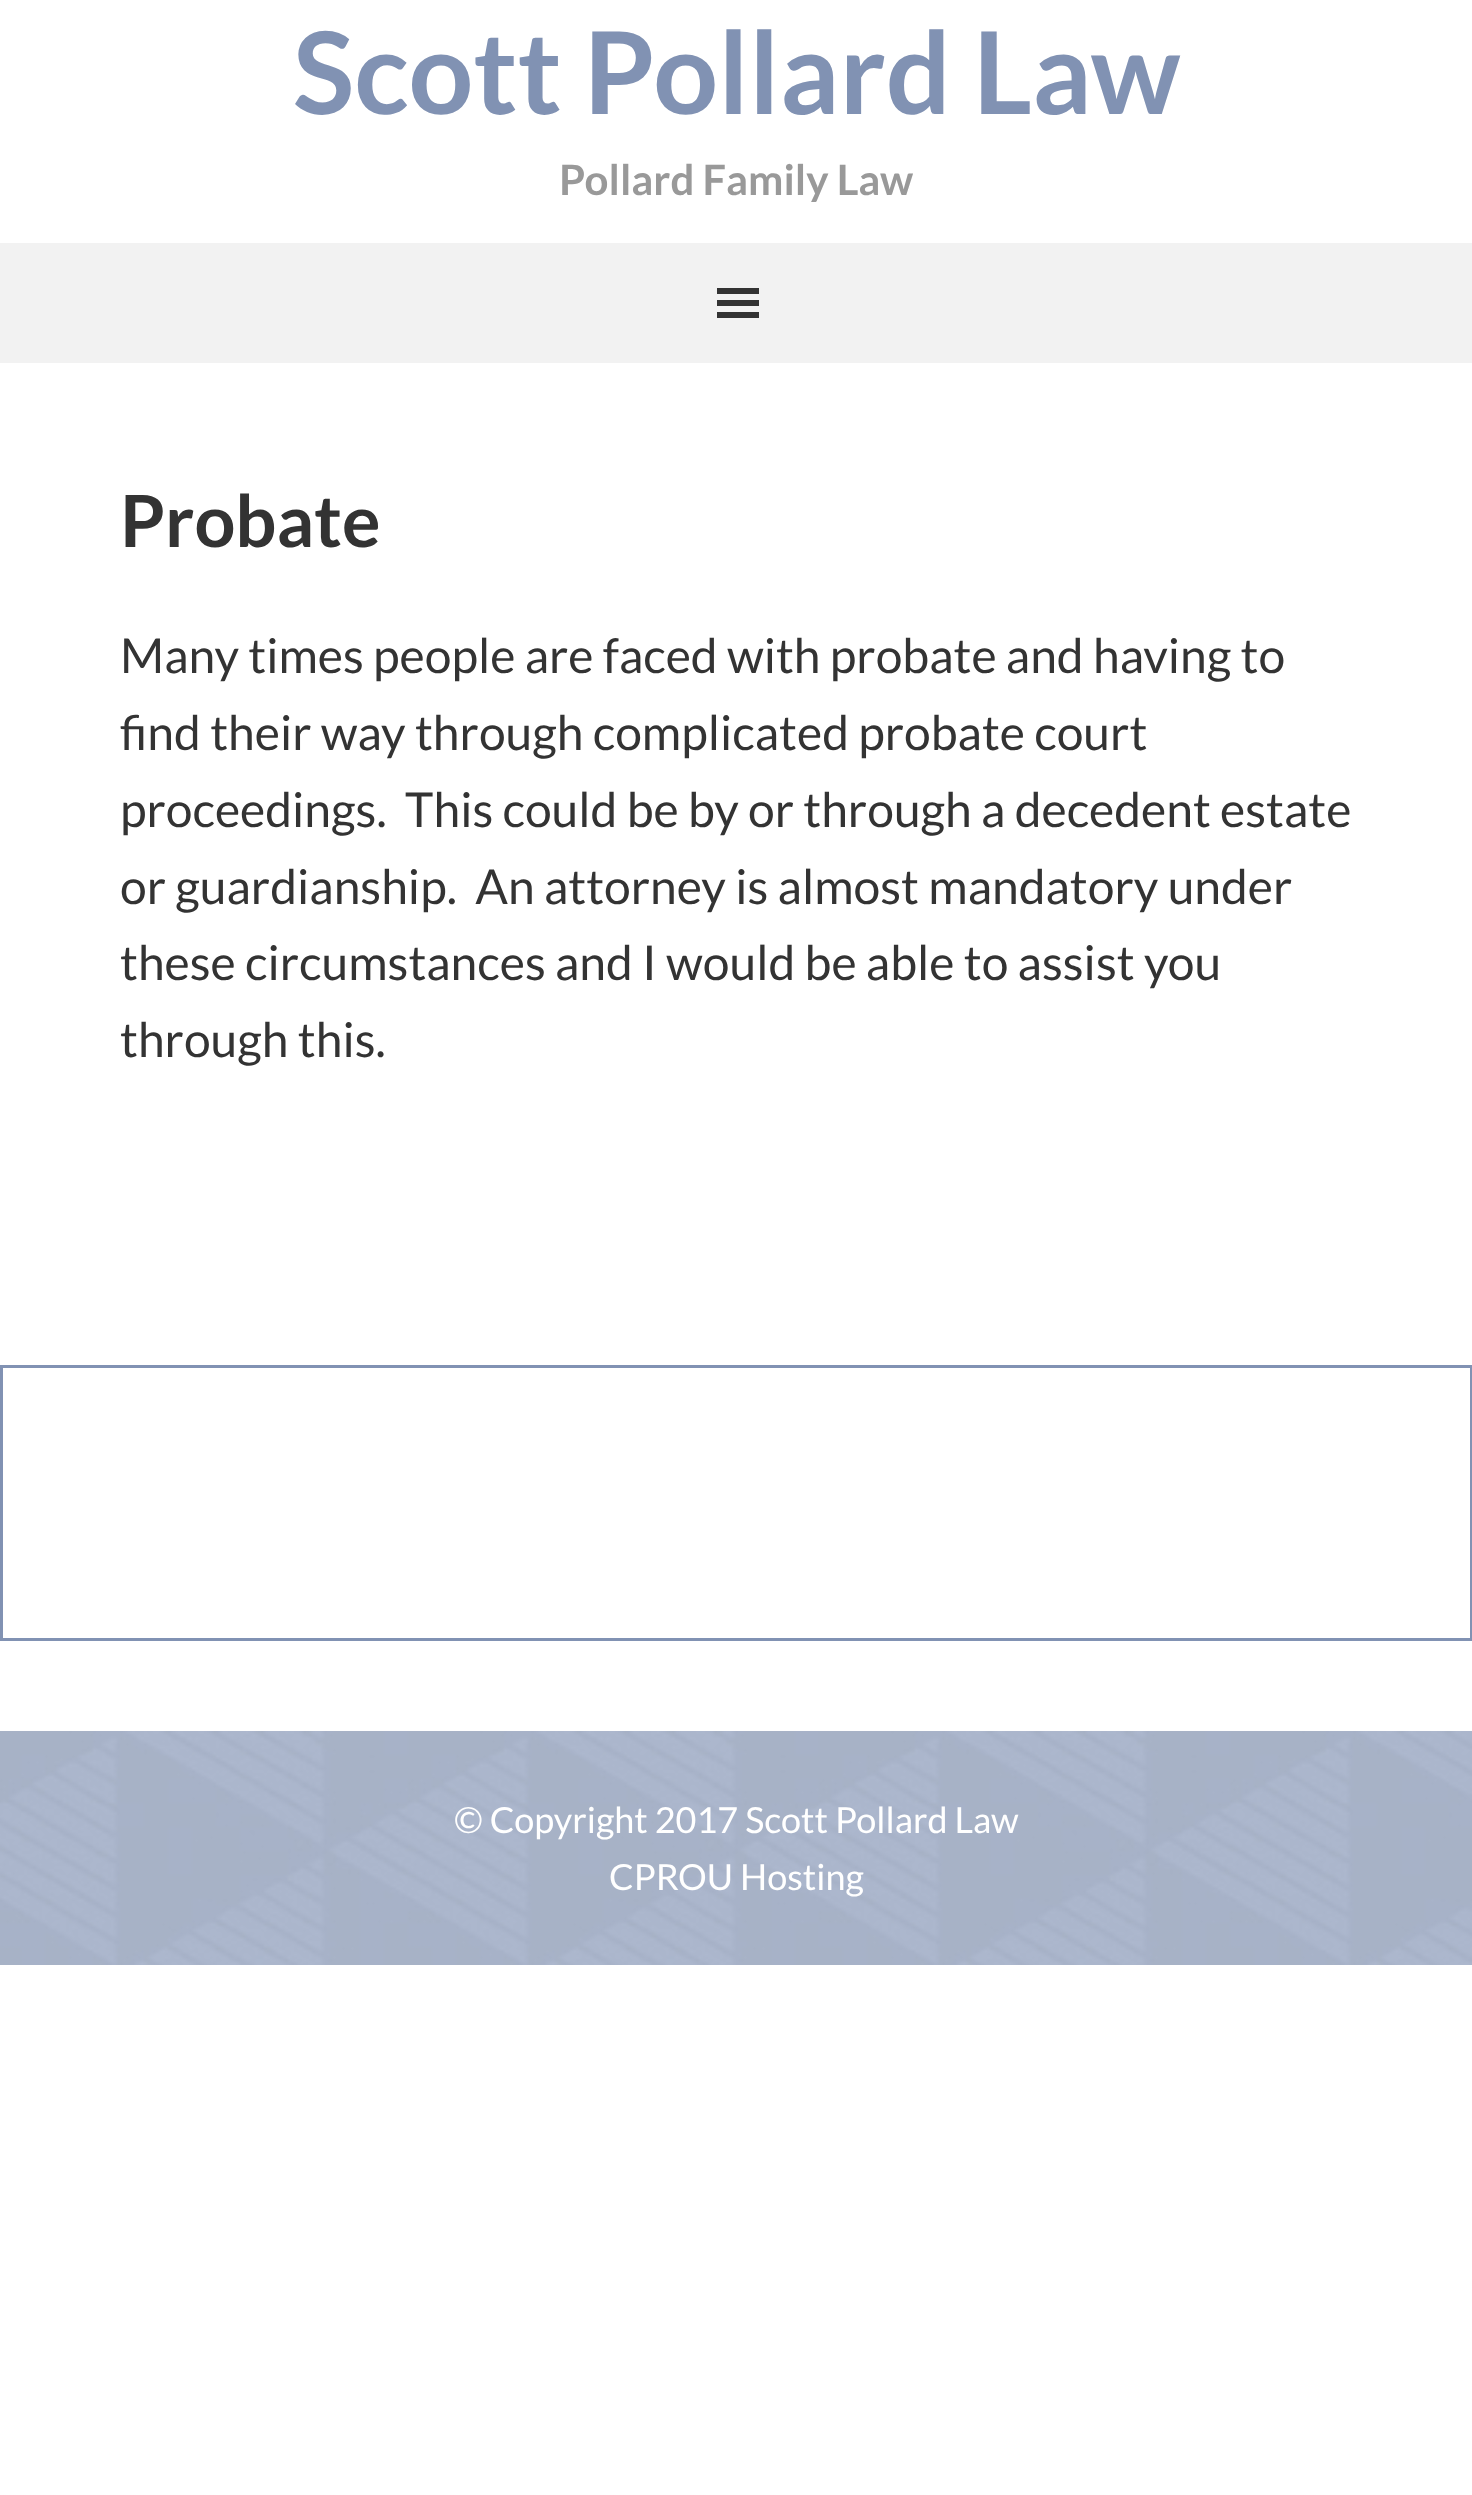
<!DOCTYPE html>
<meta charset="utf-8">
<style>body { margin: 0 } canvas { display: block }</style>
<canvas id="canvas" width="1472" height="2495"></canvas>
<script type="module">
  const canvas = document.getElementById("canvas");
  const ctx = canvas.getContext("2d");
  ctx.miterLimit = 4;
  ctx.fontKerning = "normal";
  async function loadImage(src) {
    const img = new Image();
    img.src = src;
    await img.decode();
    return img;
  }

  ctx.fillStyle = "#ffffff";
  ctx.fillRect(0, 0, 1472, 2495);
  ctx.font = "bold 114px Lato";
  ctx.fillStyle = "#8192b3";
  ctx.fillText("Scott Pollard Law", 293, 114);
  ctx.font = "bold 42px Lato";
  ctx.fillStyle = "#999999";
  ctx.fillText("Pollard Family Law", 559, 195);
  ctx.fillStyle = "#f2f2f2";
  ctx.fillRect(0, 243, 1472, 120);
  ctx.fillStyle = "#333333";
  ctx.beginPath();
  ctx.moveTo(717, 318);
  ctx.lineTo(759, 318);
  ctx.lineTo(759, 312);
  ctx.lineTo(717, 312);
  ctx.closePath();
  ctx.moveTo(717, 288);
  ctx.lineTo(717, 294);
  ctx.lineTo(759, 294);
  ctx.lineTo(759, 288);
  ctx.closePath();
  ctx.moveTo(717, 306);
  ctx.lineTo(759, 306);
  ctx.lineTo(759, 300);
  ctx.lineTo(717, 300);
  ctx.closePath();
  ctx.fill();
  ctx.font = "bold 72px Lato";
  ctx.fillText("Probate", 120, 547);
  ctx.font = "48px Lato";
  ctx.fillText("Many times people are faced with probate and having to", 120, 673);
  ctx.fillText("find their way through complicated probate court", 120, 750);
  ctx.fillText("proceedings.  This could be by or through a decedent estate", 120, 827);
  ctx.fillText("or guardianship.  An attorney is almost mandatory under", 120, 904);
  ctx.fillText("these circumstances and I would be able to assist you", 120, 980);
  ctx.fillText("through this.", 120, 1057);
  ctx.strokeStyle = "#8192b3";
  ctx.lineWidth = 3;
  ctx.strokeRect(1.5, 1366.5, 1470, 273);
  ctx.drawImage(await loadImage("img1.png"), 0, 1731, 1472, 234);
  ctx.font = "36px Lato";
  ctx.fillStyle = "#ffffff";
  ctx.fillText("© Copyright 2017 Scott Pollard Law", 454, 1833);
  ctx.fillText("CPROU Hosting", 609, 1890);
</script>
